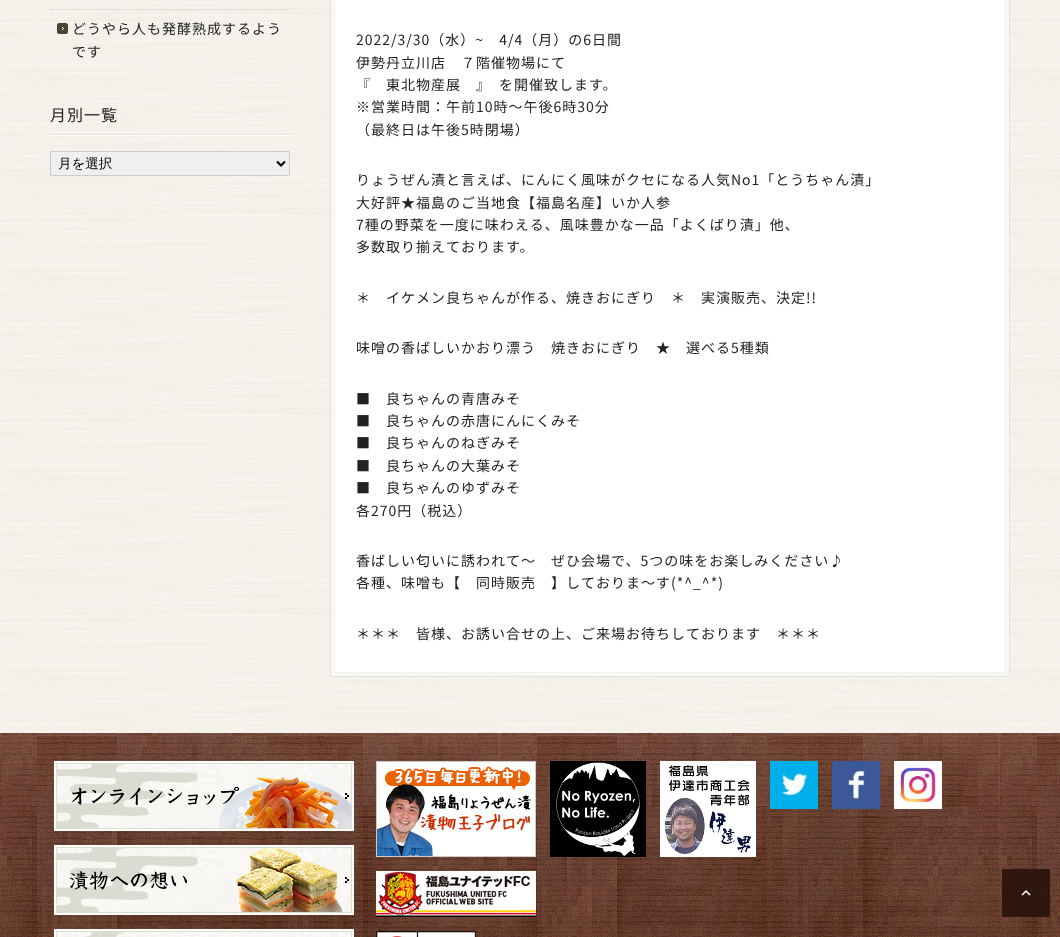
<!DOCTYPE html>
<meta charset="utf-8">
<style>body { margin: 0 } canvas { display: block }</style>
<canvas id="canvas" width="1060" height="937"></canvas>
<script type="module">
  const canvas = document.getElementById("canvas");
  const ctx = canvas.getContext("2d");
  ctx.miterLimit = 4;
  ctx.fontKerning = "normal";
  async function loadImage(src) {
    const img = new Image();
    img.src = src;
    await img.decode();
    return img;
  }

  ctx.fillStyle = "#ffffff";
  ctx.fillRect(0, 0, 1060, 937);
  ctx.drawImage(await loadImage("img1.png"), 0, 0, 1060, 733);
  ctx.beginPath();
  ctx.moveTo(50, 9.5);
  ctx.lineTo(290, 9.5);
  ctx.strokeStyle = "#cccccc";
  ctx.setLineDash([1, 1]);
  ctx.stroke();
  ctx.drawImage(await loadImage("img2.png"), 57, 23, 11, 11);
  ctx.letterSpacing = "1px";
  ctx.font = "14px Noto Sans JP";
  ctx.fillStyle = "#222222";
  ctx.fillText("どうやら人も発酵熟成するよう", 72, 34);
  ctx.fillText("です", 72, 57);
  ctx.drawImage(await loadImage("img3.png"), 50, 134, 240, 2);
  ctx.font = "16px Noto Sans JP";
  ctx.fillText("月別一覧", 50, 121);
  ctx.fillStyle = "#efefef";
  ctx.beginPath();
  ctx.rect(50.5, 151.5, 239, 24);
  ctx.fill();
  ctx.setLineDash([]);
  ctx.stroke();
  ctx.beginPath();
  ctx.moveTo(277, 161.5);
  ctx.lineTo(281, 165.5);
  ctx.lineTo(285, 161.5);
  ctx.strokeStyle = "#000000";
  ctx.lineWidth = 2;
  ctx.stroke();
  ctx.letterSpacing = "0px";
  ctx.font = "500 13.5px WenQuanYi Zen Hei";
  ctx.fillStyle = "#000000";
  ctx.fillText("月を選択", 58, 168);
  ctx.fillStyle = "rgba(255, 255, 255, 0.5)";
  ctx.beginPath();
  ctx.rect(330.5, -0.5, 679, 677);
  ctx.fill();
  ctx.strokeStyle = "#e2e2e2";
  ctx.lineWidth = 1;
  ctx.stroke();
  ctx.fillStyle = "#ffffff";
  ctx.beginPath();
  ctx.rect(334.5, -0.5, 671, 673);
  ctx.fill();
  ctx.strokeStyle = "#f1f1f1";
  ctx.stroke();
  ctx.letterSpacing = "1px";
  ctx.font = "14px Noto Sans JP";
  ctx.fillStyle = "#222222";
  ctx.fillText("2022/3/30（水）~　4/4（月）の6日間", 356, 45);
  ctx.fillText("伊勢丹立川店　７階催物場にて", 356, 68);
  ctx.fillText("『　東北物産展　』　を開催致します。", 356, 90);
  ctx.fillText("※営業時間：午前10時～午後6時30分", 356, 112);
  ctx.fillText("（最終日は午後5時閉場）", 356, 135);
  ctx.fillText("りょうぜん漬と言えば、にんにく風味がクセになる人気No1「とうちゃん漬」", 356, 185);
  ctx.fillText("大好評★福島のご当地食【福島名産】いか人参", 356, 208);
  ctx.fillText("7種の野菜を一度に味わえる、風味豊かな一品「よくばり漬」他、", 356, 230);
  ctx.fillText("多数取り揃えております。", 356, 252);
  ctx.fillText("＊　イケメン良ちゃんが作る、焼きおにぎり　＊　実演販売、決定!!", 356, 303);
  ctx.fillText("味噌の香ばしいかおり漂う　焼きおにぎり　★　選べる5種類", 356, 353);
  ctx.fillText("■　良ちゃんの青唐みそ", 356, 404);
  ctx.fillText("■　良ちゃんの赤唐にんにくみそ", 356, 426);
  ctx.fillText("■　良ちゃんのねぎみそ", 356, 448);
  ctx.fillText("■　良ちゃんの大葉みそ", 356, 471);
  ctx.fillText("■　良ちゃんのゆずみそ", 356, 493);
  ctx.fillText("各270円（税込）", 356, 516);
  ctx.fillText("香ばしい匂いに誘われて～　ぜひ会場で、5つの味をお楽しみください♪", 356, 566);
  ctx.fillText("各種、味噌も【　同時販売　】しておりま～す(*^_^*)", 356, 588);
  ctx.fillText("＊＊＊　皆様、お誘い合せの上、ご来場お待ちしております　＊＊＊", 356, 639);
  ctx.drawImage(await loadImage("img4.png"), 0, 733, 1060, 204);
  ctx.drawImage(await loadImage("img5.png"), 54, 761, 300, 70);
  ctx.drawImage(await loadImage("img6.png"), 54, 845, 300, 70);
  ctx.drawImage(await loadImage("img7.png"), 54, 929, 300, 8);
  ctx.drawImage(await loadImage("img8.png"), 376, 761, 160, 96);
  ctx.drawImage(await loadImage("img9.png"), 550, 761, 96, 96);
  ctx.drawImage(await loadImage("img10.png"), 660, 761, 96, 96);
  ctx.drawImage(await loadImage("img11.png"), 770, 761, 48, 48);
  ctx.drawImage(await loadImage("img12.png"), 832, 761, 48, 48);
  ctx.drawImage(await loadImage("img13.png"), 894, 761, 48, 48);
  ctx.drawImage(await loadImage("img14.png"), 376, 871, 160, 46);
  ctx.drawImage(await loadImage("img15.png"), 376, 931, 100, 6);
  ctx.fillStyle = "rgba(36, 17, 10, 0.85)";
  ctx.fillRect(1002, 869, 48, 48);
  ctx.drawImage(await loadImage("img16.png"), 1021, 890, 10, 6);
</script>
